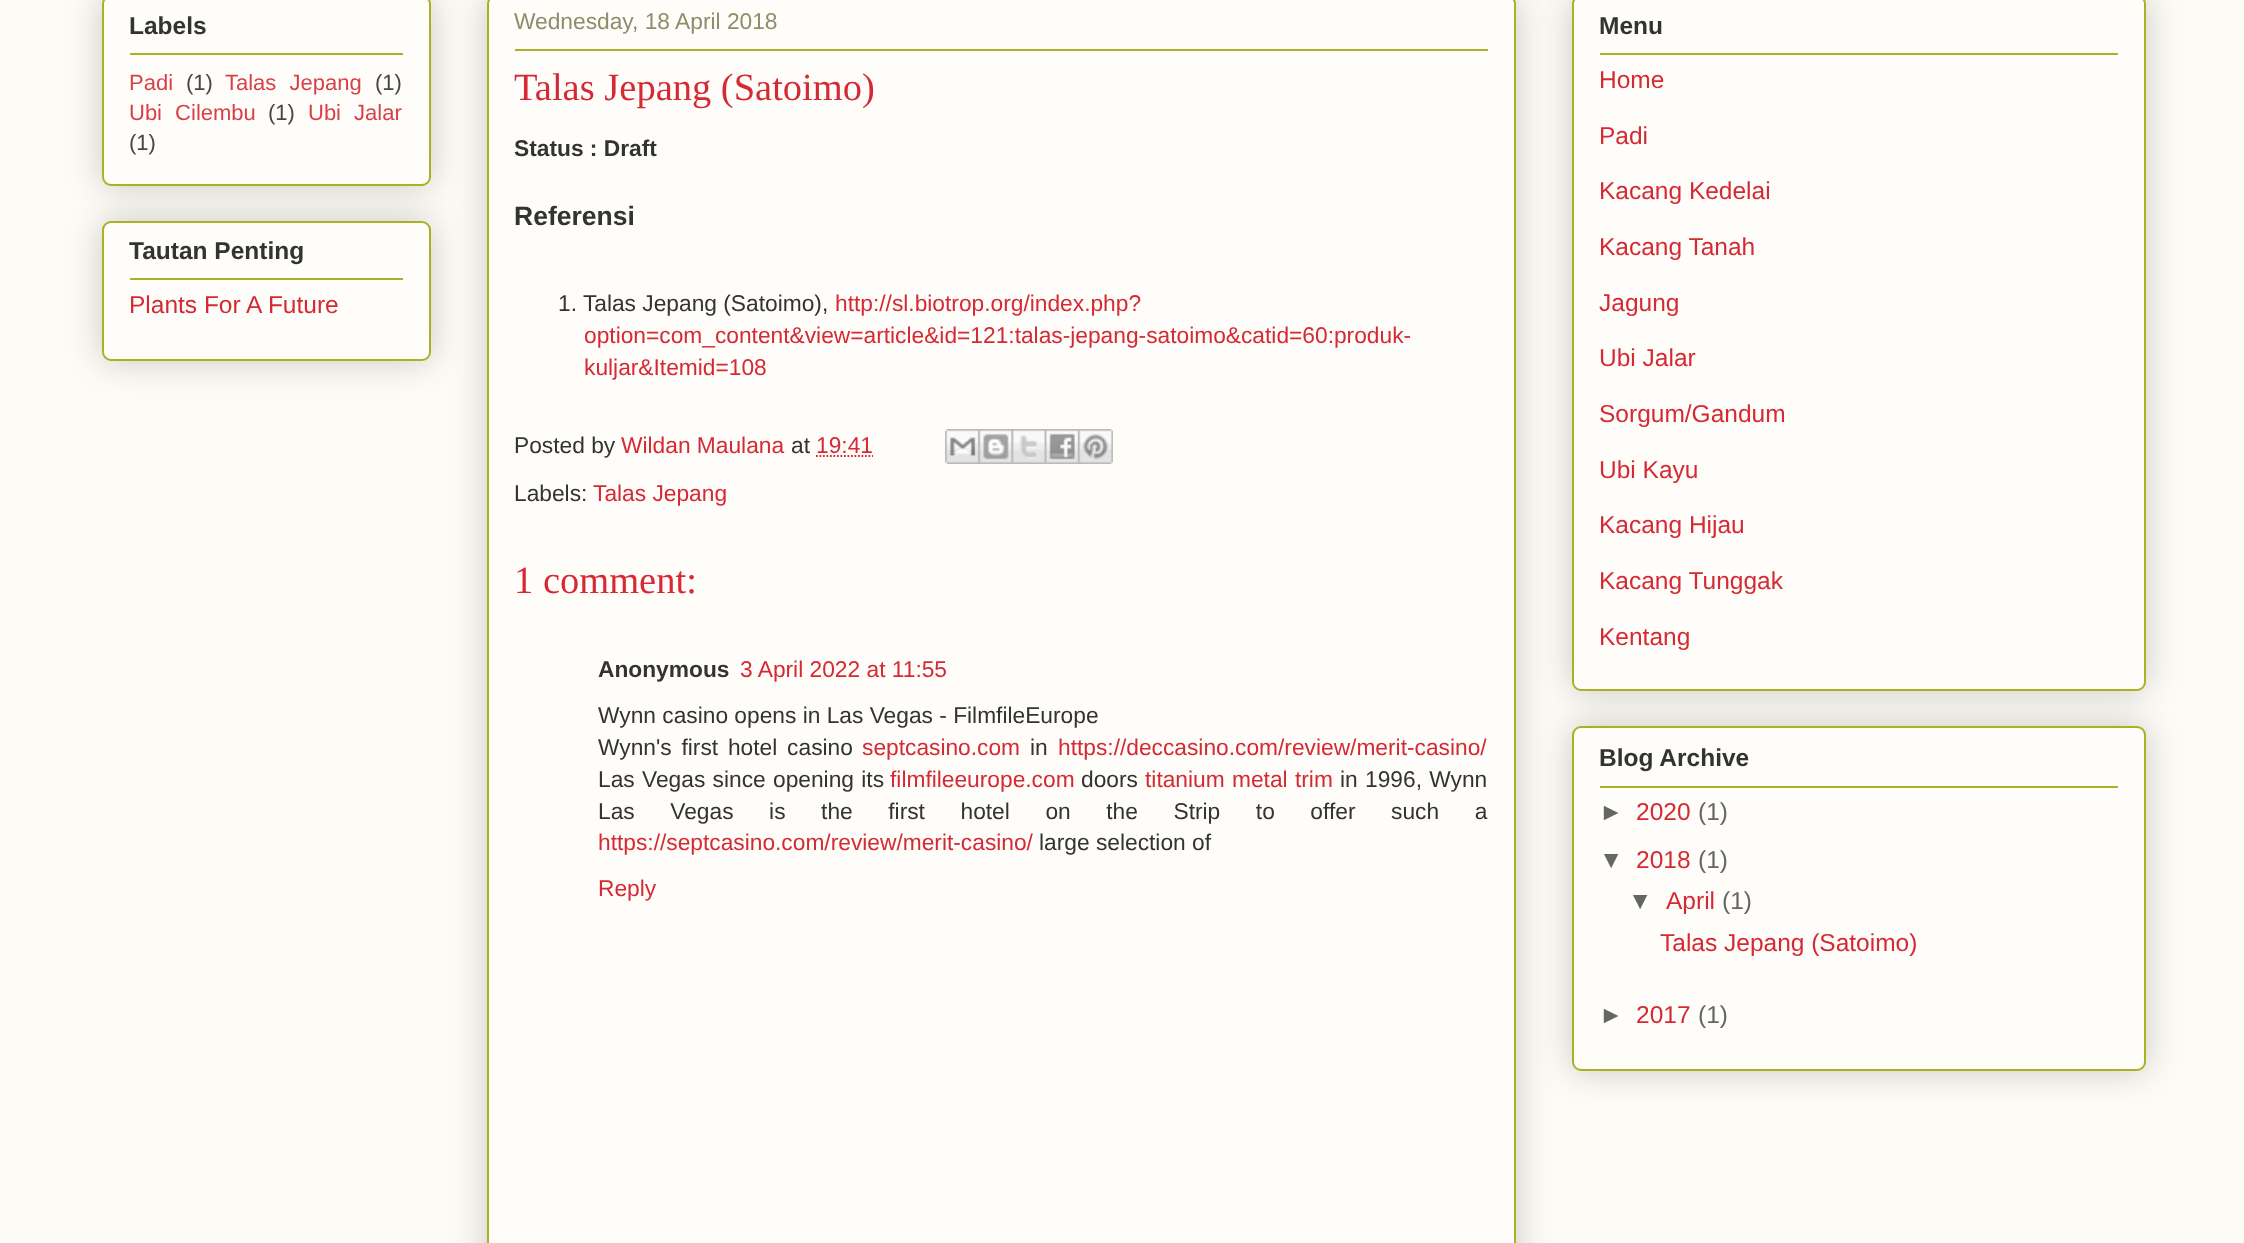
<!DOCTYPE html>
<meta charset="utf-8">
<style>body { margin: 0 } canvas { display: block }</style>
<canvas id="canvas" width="2244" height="1243"></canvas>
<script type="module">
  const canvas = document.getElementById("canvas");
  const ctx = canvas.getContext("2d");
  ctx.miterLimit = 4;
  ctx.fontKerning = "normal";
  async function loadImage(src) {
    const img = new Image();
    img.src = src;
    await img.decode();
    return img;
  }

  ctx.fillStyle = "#fcfbf5";
  ctx.fillRect(0, 0, 2244, 1243);
  ctx.fillStyle = "rgba(0, 0, 0, 0.2)";
  ctx.filter = "blur(17.5px)";
  ctx.beginPath();
  ctx.roundRect(102, -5, 329, 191, 9);
  ctx.fill();
  ctx.filter = "none";
  ctx.fillStyle = "#fefdfa";
  ctx.beginPath();
  ctx.roundRect(103, -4, 327, 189, 8);
  ctx.fill();
  ctx.strokeStyle = "#aab123";
  ctx.lineWidth = 2;
  ctx.stroke();
  ctx.font = "bold 24.5px Liberation Sans";
  ctx.fillStyle = "#333333";
  ctx.fillText("Labels", 129, 34);
  ctx.fillStyle = "#aab123";
  ctx.fillRect(130, 53, 273, 2);
  ctx.font = "22px Liberation Sans";
  ctx.fillStyle = "#d93f47";
  ctx.fillText("Padi", 129, 90);
  ctx.fillStyle = "#474747";
  ctx.fillText("(1)", 186, 90);
  ctx.wordSpacing = "7px";
  ctx.fillStyle = "#d93f47";
  ctx.fillText("Talas Jepang", 225, 90);
  ctx.wordSpacing = "0px";
  ctx.fillStyle = "#474747";
  ctx.fillText("(1)", 375, 90);
  ctx.wordSpacing = "7px";
  ctx.fillStyle = "#d93f47";
  ctx.fillText("Ubi Cilembu", 129, 120);
  ctx.wordSpacing = "0px";
  ctx.fillStyle = "#474747";
  ctx.fillText("(1)", 268, 120);
  ctx.wordSpacing = "7px";
  ctx.fillStyle = "#d93f47";
  ctx.fillText("Ubi Jalar", 308, 120);
  ctx.wordSpacing = "0px";
  ctx.fillStyle = "#474747";
  ctx.fillText("(1)", 129, 150);
  ctx.fillStyle = "rgba(0, 0, 0, 0.2)";
  ctx.filter = "blur(17.5px)";
  ctx.beginPath();
  ctx.roundRect(102, 221, 329, 140, 9);
  ctx.fill();
  ctx.filter = "none";
  ctx.fillStyle = "#fefdfa";
  ctx.beginPath();
  ctx.roundRect(103, 222, 327, 138, 8);
  ctx.fill();
  ctx.stroke();
  ctx.font = "bold 24.5px Liberation Sans";
  ctx.fillStyle = "#333333";
  ctx.fillText("Tautan Penting", 129, 259);
  ctx.fillStyle = "#aab123";
  ctx.fillRect(130, 278, 273, 2);
  ctx.font = "24.5px Liberation Sans";
  ctx.fillStyle = "#d52a33";
  ctx.fillText("Plants For A Future", 129, 313);
  ctx.fillStyle = "rgba(0, 0, 0, 0.2)";
  ctx.filter = "blur(17.5px)";
  ctx.beginPath();
  ctx.roundRect(487, -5, 1029, 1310, 9);
  ctx.fill();
  ctx.filter = "none";
  ctx.fillStyle = "#fefdfa";
  ctx.beginPath();
  ctx.roundRect(488, -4, 1027, 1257, 8);
  ctx.fill();
  ctx.stroke();
  ctx.font = "22.75px Liberation Sans";
  ctx.fillStyle = "#908d6a";
  ctx.fillText("Wednesday, 18 April 2018", 514, 29);
  ctx.fillStyle = "#aab123";
  ctx.fillRect(515, 49, 973, 2);
  ctx.font = "38.5px Liberation Serif";
  ctx.fillStyle = "#d52a33";
  ctx.fillText("Talas Jepang (Satoimo)", 514, 100);
  ctx.font = "bold 22.75px Liberation Sans";
  ctx.fillStyle = "#333333";
  ctx.fillText("Status : Draft", 514, 156);
  ctx.font = "bold 26.5px Liberation Sans";
  ctx.fillText("Referensi", 514, 225);
  ctx.font = "22.75px Liberation Sans";
  ctx.fillText("1. Talas Jepang (Satoimo),", 558, 311);
  ctx.fillStyle = "#d52a33";
  ctx.fillText("http://sl.biotrop.org/index.php?", 835, 311);
  ctx.fillText("option=com_content&view=article&id=121:talas-jepang-satoimo&catid=60:produk-", 584, 343);
  ctx.fillText("kuljar&Itemid=108", 584, 375);
  ctx.fillStyle = "#333333";
  ctx.fillText("Posted by", 514, 453);
  ctx.fillStyle = "#d52a33";
  ctx.fillText("Wildan Maulana", 621, 453);
  ctx.fillStyle = "#333333";
  ctx.fillText("at", 791, 453);
  ctx.fillStyle = "#d52a33";
  ctx.fillText("19:41", 816, 453);
  ctx.beginPath();
  ctx.moveTo(816, 456);
  ctx.lineTo(873, 456);
  ctx.strokeStyle = "#d52a33";
  ctx.lineWidth = 1.8;
  ctx.setLineDash([1.75, 1.75]);
  ctx.stroke();
  ctx.drawImage(await loadImage("img1.png"), 945, 429, 34, 35);
  ctx.drawImage(await loadImage("img2.png"), 978, 429, 34, 35);
  ctx.drawImage(await loadImage("img3.png"), 1011, 429, 34, 35);
  ctx.drawImage(await loadImage("img4.png"), 1044, 429, 34, 35);
  ctx.drawImage(await loadImage("img5.png"), 1078, 429, 35, 35);
  ctx.fillStyle = "#333333";
  ctx.fillText("Labels:", 514, 501);
  ctx.fillStyle = "#d52a33";
  ctx.fillText("Talas Jepang", 593, 501);
  ctx.font = "38.5px Liberation Serif";
  ctx.fillText("1 comment:", 514, 593);
  ctx.font = "bold 22.75px Liberation Sans";
  ctx.fillStyle = "#333333";
  ctx.fillText("Anonymous", 598, 677);
  ctx.font = "22.75px Liberation Sans";
  ctx.fillStyle = "#d52a33";
  ctx.fillText("3 April 2022 at 11:55", 740, 677);
  ctx.fillStyle = "#333333";
  ctx.fillText("Wynn casino opens in Las Vegas - FilmfileEurope", 598, 723);
  ctx.wordSpacing = "3.5px";
  ctx.fillText("Wynn's first hotel casino", 598, 755);
  ctx.wordSpacing = "0px";
  ctx.fillStyle = "#d52a33";
  ctx.fillText("septcasino.com", 862, 755);
  ctx.fillStyle = "#333333";
  ctx.fillText("in", 1030, 755);
  ctx.fillStyle = "#d52a33";
  ctx.fillText("https://deccasino.com/review/merit-casino/", 1058, 755);
  ctx.wordSpacing = "1px";
  ctx.fillStyle = "#333333";
  ctx.fillText("Las Vegas since opening its", 598, 787);
  ctx.wordSpacing = "0px";
  ctx.fillStyle = "#d52a33";
  ctx.fillText("filmfileeurope.com", 890, 787);
  ctx.fillStyle = "#333333";
  ctx.fillText("doors", 1081, 787);
  ctx.wordSpacing = "1px";
  ctx.fillStyle = "#d52a33";
  ctx.fillText("titanium metal trim", 1145, 787);
  ctx.fillStyle = "#333333";
  ctx.fillText("in 1996, Wynn", 1340, 787);
  ctx.wordSpacing = "29.25px";
  ctx.fillText("Las Vegas is the first hotel on the Strip to offer such a", 598, 819);
  ctx.wordSpacing = "0px";
  ctx.fillStyle = "#d52a33";
  ctx.fillText("https://septcasino.com/review/merit-casino/", 598, 850);
  ctx.fillStyle = "#333333";
  ctx.fillText("large selection of", 1039, 850);
  ctx.fillStyle = "#d52a33";
  ctx.fillText("Reply", 598, 896);
  ctx.fillStyle = "rgba(0, 0, 0, 0.2)";
  ctx.filter = "blur(17.5px)";
  ctx.beginPath();
  ctx.roundRect(1572, -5, 574, 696, 9);
  ctx.fill();
  ctx.filter = "none";
  ctx.fillStyle = "#fefdfa";
  ctx.beginPath();
  ctx.roundRect(1573, -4, 572, 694, 8);
  ctx.fill();
  ctx.strokeStyle = "#aab123";
  ctx.lineWidth = 2;
  ctx.setLineDash([]);
  ctx.stroke();
  ctx.font = "bold 24.5px Liberation Sans";
  ctx.fillStyle = "#333333";
  ctx.fillText("Menu", 1599, 34);
  ctx.fillStyle = "#aab123";
  ctx.fillRect(1600, 53, 518, 2);
  ctx.font = "24.5px Liberation Sans";
  ctx.fillStyle = "#d52a33";
  ctx.fillText("Home", 1599, 88);
  ctx.fillText("Padi", 1599, 144);
  ctx.fillText("Kacang Kedelai", 1599, 199);
  ctx.fillText("Kacang Tanah", 1599, 255);
  ctx.fillText("Jagung", 1599, 311);
  ctx.fillText("Ubi Jalar", 1599, 366);
  ctx.fillText("Sorgum/Gandum", 1599, 422);
  ctx.fillText("Ubi Kayu", 1599, 478);
  ctx.fillText("Kacang Hijau", 1599, 533);
  ctx.fillText("Kacang Tunggak", 1599, 589);
  ctx.fillText("Kentang", 1599, 645);
  ctx.fillStyle = "rgba(0, 0, 0, 0.2)";
  ctx.filter = "blur(17.5px)";
  ctx.beginPath();
  ctx.roundRect(1572, 726, 574, 345, 9);
  ctx.fill();
  ctx.filter = "none";
  ctx.fillStyle = "#fefdfa";
  ctx.beginPath();
  ctx.roundRect(1573, 727, 572, 343, 8);
  ctx.fill();
  ctx.stroke();
  ctx.font = "bold 24.5px Liberation Sans";
  ctx.fillStyle = "#333333";
  ctx.fillText("Blog Archive", 1599, 766);
  ctx.fillStyle = "#aab123";
  ctx.fillRect(1600, 786, 518, 2);
  ctx.font = "24.5px Liberation Sans";
  ctx.fillStyle = "#666666";
  ctx.fillText("►", 1599, 820);
  ctx.fillStyle = "#d52a33";
  ctx.fillText("2020", 1636, 820);
  ctx.fillStyle = "#666666";
  ctx.fillText("(1)", 1698, 820);
  ctx.fillText("▼", 1599, 868);
  ctx.fillStyle = "#d52a33";
  ctx.fillText("2018", 1636, 868);
  ctx.fillStyle = "#666666";
  ctx.fillText("(1)", 1698, 868);
  ctx.fillText("▼", 1628, 909);
  ctx.fillStyle = "#d52a33";
  ctx.fillText("April", 1666, 909);
  ctx.fillStyle = "#666666";
  ctx.fillText("(1)", 1722, 909);
  ctx.fillStyle = "#d52a33";
  ctx.fillText("Talas Jepang (Satoimo)", 1660, 951);
  ctx.fillStyle = "#666666";
  ctx.fillText("►", 1599, 1023);
  ctx.fillStyle = "#d52a33";
  ctx.fillText("2017", 1636, 1023);
  ctx.fillStyle = "#666666";
  ctx.fillText("(1)", 1698, 1023);
</script>
